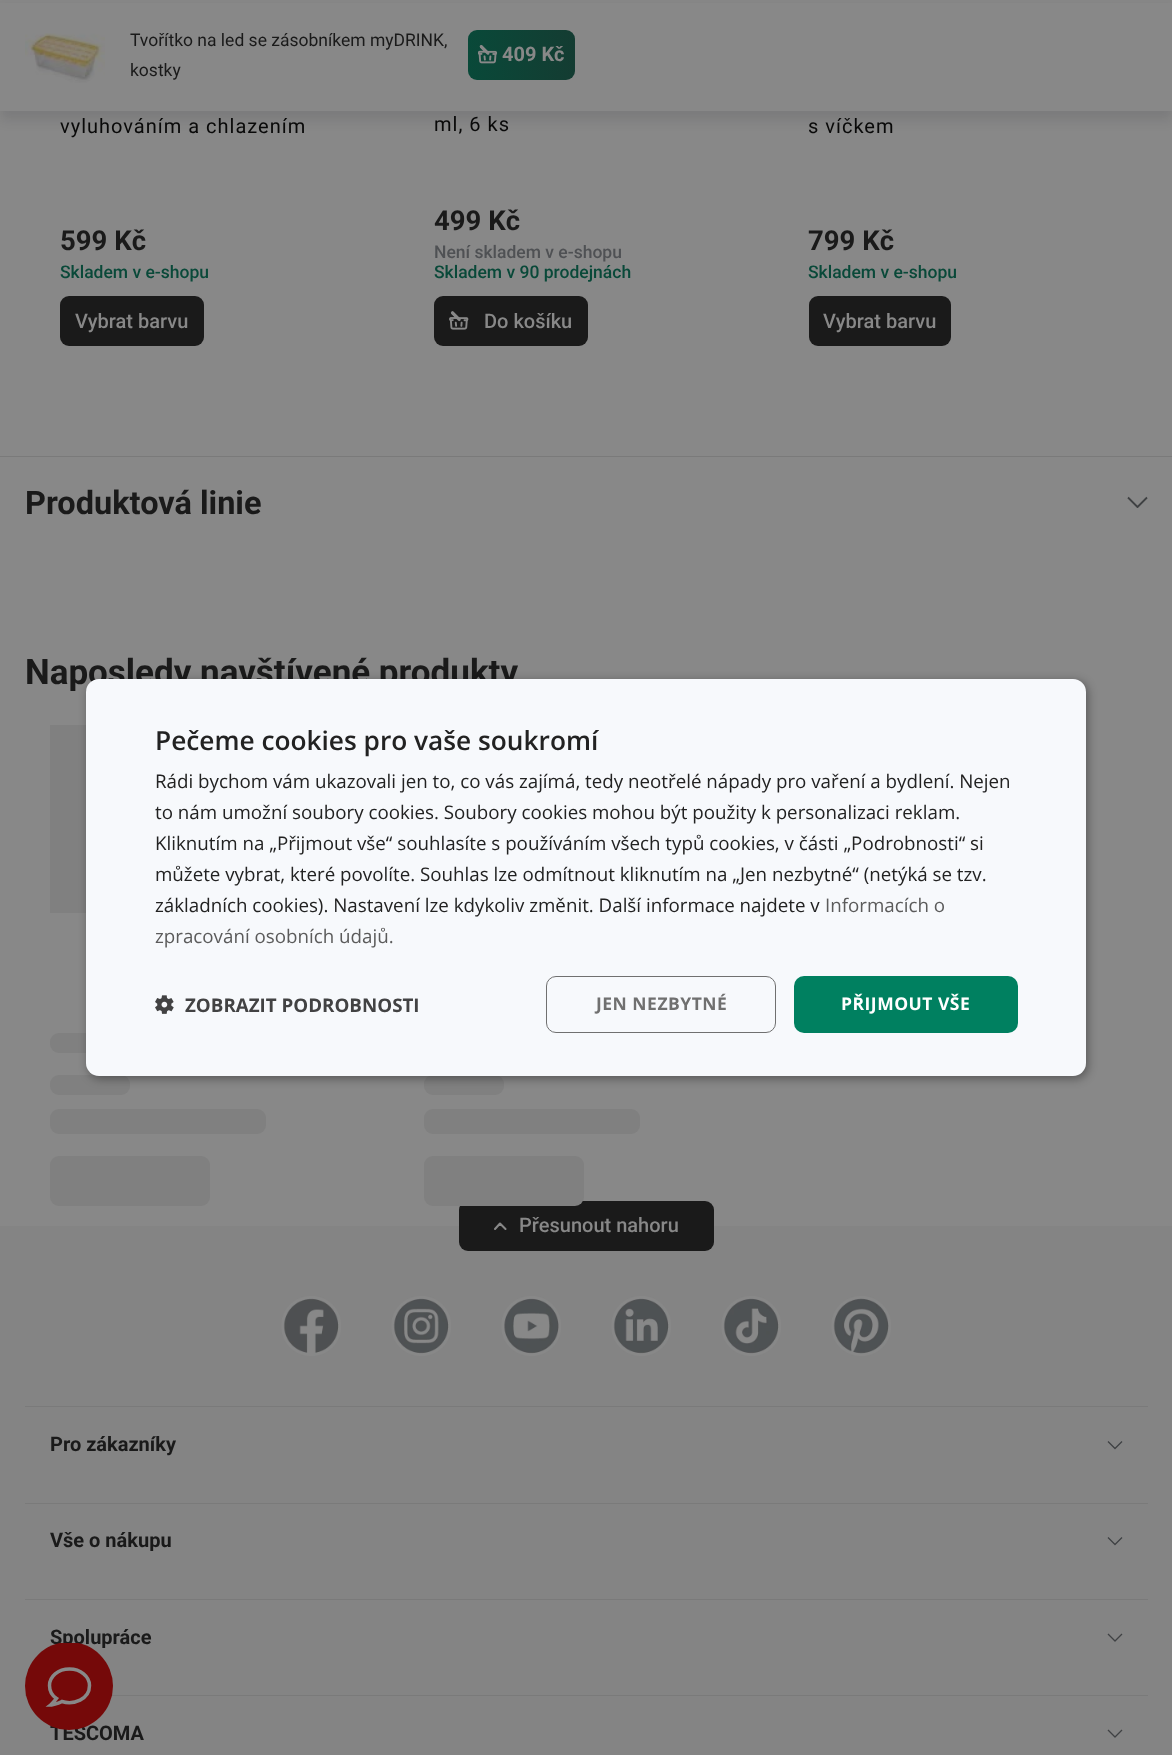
<!DOCTYPE html>
<meta charset="utf-8">
<style>body { margin: 0 } canvas { display: block }</style>
<canvas id="canvas" width="1172" height="1755"></canvas>
<script type="module">
  const canvas = document.getElementById("canvas");
  const ctx = canvas.getContext("2d");
  ctx.miterLimit = 4;
  ctx.fontKerning = "normal";
  async function loadImage(src) {
    const img = new Image();
    img.src = src;
    await img.decode();
    return img;
  }
  let gradient;

  ctx.fillStyle = "#888888";
  ctx.fillRect(0, 0, 1172, 1755);
  ctx.fillStyle = "rgba(9, 9, 16, 0.1)";
  ctx.filter = "blur(6px)";
  ctx.beginPath();
  ctx.rect(0, 8, 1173, 112);
  ctx.fill();
  ctx.filter = "none";
  ctx.fillStyle = "#888888";
  ctx.fillRect(0, 3, 1172, 108);
  ctx.drawImage(await loadImage("img1.png"), 25, 33, 80, 50);
  ctx.font = "17.5px Roboto";
  ctx.fillStyle = "#1a1a1a";
  ctx.fillText("Tvořítko na led se zásobníkem myDRINK,", 130, 46);
  ctx.fillText("kostky", 130, 76);
  gradient = ctx.createLinearGradient(468, 55, 575, 55);
  gradient.addColorStop(0, "#094939");
  gradient.addColorStop(1, "#143c32");
  ctx.fillStyle = gradient;
  ctx.beginPath();
  ctx.roundRect(468, 30, 107, 50, 9);
  ctx.fill();
  ctx.drawImage(await loadImage("img2.png"), 478, 45, 20, 19);
  ctx.font = "bold 20px Roboto";
  ctx.fillStyle = "#888888";
  ctx.fillText("409 Kč", 502, 61);
  ctx.letterSpacing = "1px";
  ctx.font = "20px Roboto";
  ctx.fillStyle = "#090909";
  ctx.fillText("vyluhováním a chlazením", 60, 133);
  ctx.letterSpacing = "0px";
  ctx.font = "bold 27.5px Roboto";
  ctx.fillStyle = "#1a1a1a";
  ctx.fillText("599 Kč", 60, 250);
  ctx.font = "500 17.5px Roboto";
  ctx.fillStyle = "#094939";
  ctx.fillText("Skladem v e-shopu", 60, 278);
  ctx.fillStyle = "#1a1a1a";
  ctx.beginPath();
  ctx.roundRect(60, 296, 144, 50, 9);
  ctx.fill();
  ctx.font = "500 20px Roboto";
  ctx.fillStyle = "#888888";
  ctx.fillText("Vybrat barvu", 75, 328);
  ctx.letterSpacing = "1px";
  ctx.font = "20px Roboto";
  ctx.fillStyle = "#090909";
  ctx.fillText("ml, 6 ks", 434, 131);
  ctx.letterSpacing = "0px";
  ctx.font = "bold 27.5px Roboto";
  ctx.fillStyle = "#1a1a1a";
  ctx.fillText("499 Kč", 434, 230);
  ctx.font = "500 17.5px Roboto";
  ctx.fillStyle = "#4f5154";
  ctx.fillText("Není skladem v e-shopu", 434, 258);
  ctx.fillStyle = "#094939";
  ctx.fillText("Skladem v 90 prodejnách", 434, 278);
  ctx.fillStyle = "#1a1a1a";
  ctx.beginPath();
  ctx.roundRect(434, 296, 154, 50, 9);
  ctx.fill();
  ctx.drawImage(await loadImage("img3.png"), 449, 311, 20, 19);
  ctx.font = "500 20px Roboto";
  ctx.fillStyle = "#888888";
  ctx.fillText("Do košíku", 484, 328);
  ctx.letterSpacing = "1px";
  ctx.font = "20px Roboto";
  ctx.fillStyle = "#090909";
  ctx.fillText("s víčkem", 808, 133);
  ctx.letterSpacing = "0px";
  ctx.font = "bold 27.5px Roboto";
  ctx.fillStyle = "#1a1a1a";
  ctx.fillText("799 Kč", 808, 250);
  ctx.font = "500 17.5px Roboto";
  ctx.fillStyle = "#094939";
  ctx.fillText("Skladem v e-shopu", 808, 278);
  ctx.fillStyle = "#1a1a1a";
  ctx.beginPath();
  ctx.roundRect(809, 296, 142, 50, 9);
  ctx.fill();
  ctx.font = "500 20px Roboto";
  ctx.fillStyle = "#888888";
  ctx.fillText("Vybrat barvu", 823, 328);
  ctx.fillStyle = "#7a7a7a";
  ctx.fillRect(0, 456, 1172, 1);
  ctx.font = "bold 32.5px Roboto";
  ctx.fillStyle = "#1a1a1a";
  ctx.fillText("Produktová linie", 25, 514);
  ctx.beginPath();
  ctx.moveTo(1147, 497.5);
  ctx.lineTo(1137.5, 507);
  ctx.lineTo(1128, 497.5);
  ctx.strokeStyle = "#3f4143";
  ctx.lineWidth = 1.8;
  ctx.lineJoin = "round";
  ctx.stroke();
  ctx.font = "bold 35px Roboto";
  ctx.fillText("Naposledy navštívené produkty", 25, 684);
  ctx.fillStyle = "#808080";
  ctx.fillRect(50, 725, 36, 188);
  ctx.beginPath();
  ctx.roundRect(50, 1033, 270, 20, 9);
  ctx.fill();
  ctx.beginPath();
  ctx.roundRect(50, 1075, 80, 20, 9);
  ctx.fill();
  ctx.beginPath();
  ctx.roundRect(50, 1109, 216, 25, 9);
  ctx.fill();
  ctx.beginPath();
  ctx.roundRect(50, 1156, 160, 50, 9);
  ctx.fill();
  ctx.beginPath();
  ctx.roundRect(424, 1075, 80, 20, 9);
  ctx.fill();
  ctx.beginPath();
  ctx.roundRect(424, 1109, 216, 25, 9);
  ctx.fill();
  ctx.fillStyle = "#848484";
  ctx.fillRect(0, 1226, 1172, 529);
  ctx.fillStyle = "#1a1a1a";
  ctx.beginPath();
  ctx.roundRect(459, 1201, 255, 50, 9);
  ctx.fill();
  ctx.fillStyle = "#808080";
  ctx.beginPath();
  ctx.roundRect(424, 1156, 160, 50, 9);
  ctx.fill();
  ctx.beginPath();
  ctx.moveTo(505.5, 1229);
  ctx.lineTo(500, 1223.5);
  ctx.lineTo(495, 1229);
  ctx.strokeStyle = "#888888";
  ctx.lineWidth = 2.1;
  ctx.lineCap = "round";
  ctx.stroke();
  ctx.font = "500 20px Roboto";
  ctx.fillStyle = "#888888";
  ctx.fillText("Přesunout nahoru", 519, 1232);
  ctx.drawImage(await loadImage("img4.png"), 281, 1296, 60, 60);
  ctx.drawImage(await loadImage("img5.png"), 391, 1296, 60, 60);
  ctx.drawImage(await loadImage("img6.png"), 501, 1296, 60, 60);
  ctx.drawImage(await loadImage("img7.png"), 611, 1296, 60, 60);
  ctx.drawImage(await loadImage("img8.png"), 721, 1296, 60, 60);
  ctx.drawImage(await loadImage("img9.png"), 831, 1296, 60, 60);
  ctx.fillStyle = "#7a7a7a";
  ctx.fillRect(25, 1406, 1123, 1);
  ctx.font = "bold 20px Roboto";
  ctx.fillStyle = "#1a1a1a";
  ctx.fillText("Pro zákazníky", 50, 1451);
  ctx.beginPath();
  ctx.moveTo(1122, 1441.5);
  ctx.lineTo(1115, 1448.5);
  ctx.lineTo(1108, 1441.5);
  ctx.strokeStyle = "#3f4143";
  ctx.lineWidth = 1.3;
  ctx.lineCap = "butt";
  ctx.stroke();
  ctx.fillStyle = "#7a7a7a";
  ctx.fillRect(25, 1503, 1123, 1);
  ctx.fillStyle = "#1a1a1a";
  ctx.fillText("Vše o nákupu", 50, 1547);
  ctx.beginPath();
  ctx.moveTo(1122, 1537.5);
  ctx.lineTo(1115, 1544.5);
  ctx.lineTo(1108, 1537.5);
  ctx.stroke();
  ctx.fillStyle = "#7a7a7a";
  ctx.fillRect(25, 1599, 1123, 1);
  ctx.fillStyle = "#1a1a1a";
  ctx.fillText("Spolupráce", 50, 1644);
  ctx.beginPath();
  ctx.moveTo(1122, 1634);
  ctx.lineTo(1115, 1641);
  ctx.lineTo(1108, 1634);
  ctx.stroke();
  ctx.fillStyle = "#7a7a7a";
  ctx.fillRect(25, 1695, 1123, 1);
  ctx.fillStyle = "#1a1a1a";
  ctx.fillText("TESCOMA", 50, 1740);
  ctx.beginPath();
  ctx.moveTo(1122, 1730);
  ctx.lineTo(1115, 1737);
  ctx.lineTo(1108, 1730);
  ctx.stroke();
  ctx.save();
  ctx.beginPath();
  ctx.rect(25, 1643, 88, 87);
  ctx.clip();
  ctx.fillStyle = "#750909";
  ctx.beginPath();
  ctx.arc(69, 1686, 44, 0, Math.PI * 2);
  ctx.fill();
  ctx.restore();
  ctx.beginPath();
  ctx.moveTo(89.5, 1685.5);
  ctx.bezierCurveTo(89.5, 1699.5, 73.5, 1705, 62, 1701.5);
  ctx.bezierCurveTo(58.5, 1703.5, 55.5, 1704, 51.5, 1705);
  ctx.lineTo(50.5, 1705);
  ctx.bezierCurveTo(53, 1703, 54.5, 1701, 56.5, 1698.5);
  ctx.bezierCurveTo(52, 1695.5, 49.5, 1691, 49.5, 1685.5);
  ctx.bezierCurveTo(49.5, 1676.5, 58, 1669, 69.5, 1669);
  ctx.bezierCurveTo(80.5, 1669, 89.5, 1676.5, 89.5, 1685.5);
  ctx.closePath();
  ctx.strokeStyle = "#888888";
  ctx.lineWidth = 3.5;
  ctx.lineJoin = "miter";
  ctx.stroke();
  ctx.fillStyle = "rgba(0, 0, 0, 0.35)";
  ctx.filter = "blur(5px)";
  ctx.beginPath();
  ctx.roundRect(88, 681, 1000, 398, 13);
  ctx.fill();
  ctx.filter = "none";
  ctx.fillStyle = "#f7f9fc";
  ctx.beginPath();
  ctx.roundRect(86, 679, 1000, 397, 13);
  ctx.fill();
  ctx.font = "600 26.25px Open Sans";
  ctx.fillStyle = "#222222";
  ctx.fillText("Pečeme cookies pro vaše soukromí", 155, 750);
  ctx.font = "18.75px Open Sans";
  ctx.fillText("Rádi bychom vám ukazovali jen to, co vás zajímá, tedy neotřelé nápady pro vaření a bydlení. Nejen", 155, 788);
  ctx.fillText("to nám umožní soubory cookies. Soubory cookies mohou být použity k personalizaci reklam.", 155, 819);
  ctx.fillText("Kliknutím na „Přijmout vše“ souhlasíte s používáním všech typů cookies, v části „Podrobnosti“ si", 155, 850);
  ctx.fillText("můžete vybrat, které povolíte. Souhlas lze odmítnout kliknutím na „Jen nezbytné“ (netýká se tzv.", 155, 881);
  ctx.fillText("základních cookies). Nastavení lze kdykoliv změnit. Další informace najdete v", 155, 912);
  ctx.fillStyle = "#5b5b5b";
  ctx.fillText("Informacích o", 825, 912);
  ctx.fillText("zpracování osobních údajů.", 155, 943);
  ctx.drawImage(await loadImage("img10.png"), 155, 995, 19, 19);
  ctx.font = "bold 18.75px Open Sans";
  ctx.fillStyle = "#424243";
  ctx.fillText("ZOBRAZIT PODROBNOSTI", 185, 1012);
  ctx.beginPath();
  ctx.roundRect(546.5, 976.5, 229, 56, 9.5);
  ctx.strokeStyle = "#707070";
  ctx.lineWidth = 1;
  ctx.stroke();
  ctx.letterSpacing = "0.5px";
  ctx.font = "bold 17.5px Open Sans";
  ctx.fillStyle = "#707070";
  ctx.fillText("JEN NEZBYTNÉ", 596, 1010);
  ctx.fillStyle = "#008060";
  ctx.beginPath();
  ctx.roundRect(794, 976, 224, 57, 10);
  ctx.fill();
  ctx.fillStyle = "#ffffff";
  ctx.fillText("PŘIJMOUT VŠE", 841, 1010);
</script>
